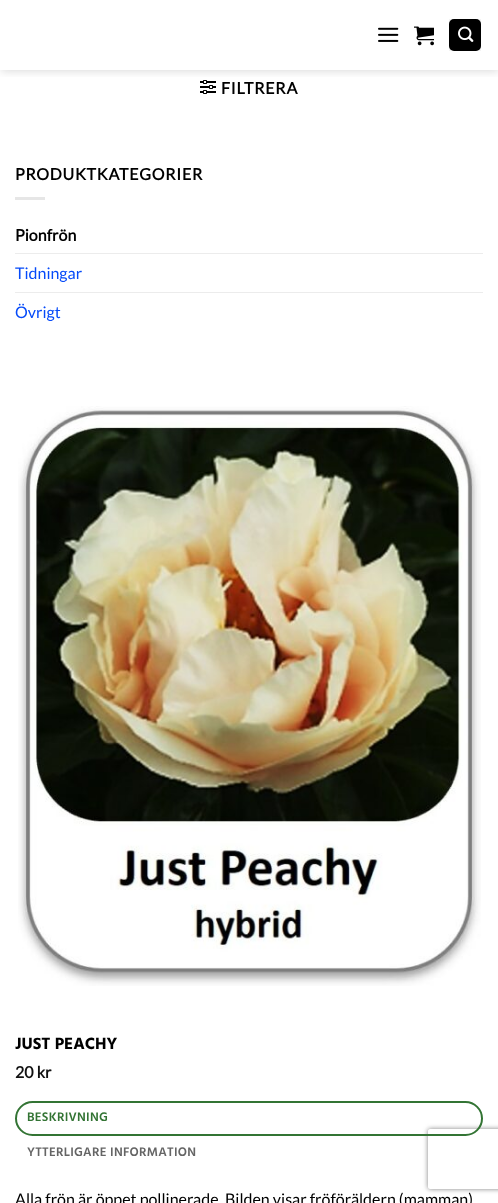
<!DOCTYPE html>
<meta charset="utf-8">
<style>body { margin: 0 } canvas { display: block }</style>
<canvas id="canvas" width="498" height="1203"></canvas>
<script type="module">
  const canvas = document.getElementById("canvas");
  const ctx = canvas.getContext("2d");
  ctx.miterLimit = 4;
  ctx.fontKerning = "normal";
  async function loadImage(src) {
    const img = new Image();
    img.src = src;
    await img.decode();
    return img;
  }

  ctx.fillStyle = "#ffffff";
  ctx.fillRect(0, 0, 498, 1203);
  ctx.drawImage(await loadImage("img4.png"), 200, 80, 16, 14);
  ctx.save();
  ctx.beginPath();
  ctx.rect(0, 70, 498, 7);
  ctx.clip();
  ctx.fillStyle = "rgba(0, 0, 0, 0.15)";
  ctx.filter = "blur(5px)";
  ctx.beginPath();
  ctx.rect(1, 1, 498, 70);
  ctx.fill();
  ctx.filter = "none";
  ctx.restore();
  ctx.drawImage(await loadImage("img1.png"), 378, 27, 21, 15);
  ctx.drawImage(await loadImage("img2.png"), 414, 26, 20, 20);
  ctx.fillStyle = "#000000";
  ctx.beginPath();
  ctx.roundRect(449, 19, 32, 32, 5);
  ctx.fill();
  ctx.strokeStyle = "rgba(0, 0, 0, 0.05)";
  ctx.strokeRect(449.5, 19.5, 31, 31);
  ctx.drawImage(await loadImage("img3.png"), 458, 26, 16, 16);
  ctx.letterSpacing = "0.75px";
  ctx.font = "bold 16px Lato";
  ctx.fillText("FILTRERA", 221, 94);
  ctx.fillText("PRODUKTKATEGORIER", 15, 180);
  ctx.fillStyle = "#e6e6e6";
  ctx.fillRect(15, 197, 30, 3);
  ctx.letterSpacing = "0px";
  ctx.fillStyle = "#000000";
  ctx.fillText("Pionfrön", 15, 241);
  ctx.fillStyle = "#ececec";
  ctx.fillRect(15, 253, 468, 1);
  ctx.font = "16px Lato";
  ctx.fillStyle = "#054af9";
  ctx.fillText("Tidningar", 15, 279);
  ctx.fillStyle = "#ececec";
  ctx.fillRect(15, 292, 468, 1);
  ctx.fillStyle = "#054af9";
  ctx.fillText("Övrigt", 15, 318);
  ctx.drawImage(await loadImage("img5.png"), 18, 406, 463, 580);
  ctx.font = "bold 16.75px Hind";
  ctx.fillStyle = "#000000";
  ctx.fillText("JUST PEACHY", 15, 1049);
  ctx.font = "bold 16px Lato";
  ctx.fillStyle = "#111111";
  ctx.fillText("20 kr", 15, 1078);
  ctx.save();
  ctx.beginPath();
  ctx.moveTo(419, 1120);
  ctx.lineTo(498, 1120);
  ctx.lineTo(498, 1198);
  ctx.lineTo(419, 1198);
  ctx.closePath();
  ctx.moveTo(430, 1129);
  ctx.lineTo(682, 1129);
  ctx.bezierCurveTo(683, 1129, 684, 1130, 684, 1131);
  ctx.lineTo(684, 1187);
  ctx.bezierCurveTo(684, 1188, 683, 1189, 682, 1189);
  ctx.lineTo(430, 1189);
  ctx.bezierCurveTo(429, 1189, 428, 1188, 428, 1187);
  ctx.lineTo(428, 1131);
  ctx.bezierCurveTo(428, 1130, 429, 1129, 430, 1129);
  ctx.closePath();
  ctx.clip("evenodd");
  ctx.fillStyle = "#808080";
  ctx.filter = "blur(2.5px)";
  ctx.beginPath();
  ctx.roundRect(428, 1129, 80, 60, 2);
  ctx.fill();
  ctx.filter = "none";
  ctx.restore();
  ctx.beginPath();
  ctx.roundRect(16, 1102, 466, 33, 16.5);
  ctx.strokeStyle = "#337434";
  ctx.lineWidth = 2;
  ctx.stroke();
  ctx.letterSpacing = "0.25px";
  ctx.font = "600 12.75px Hind";
  ctx.fillStyle = "#337434";
  ctx.fillText("BESKRIVNING", 27, 1121);
  ctx.fillStyle = "#656565";
  ctx.fillText("YTTERLIGARE INFORMATION", 27, 1156);
  ctx.letterSpacing = "0px";
  ctx.font = "16px Lato";
  ctx.fillStyle = "#000000";
  ctx.fillText("Alla frön är öppet pollinerade. Bilden visar fröföräldern (mamman)", 15, 1205);
</script>
